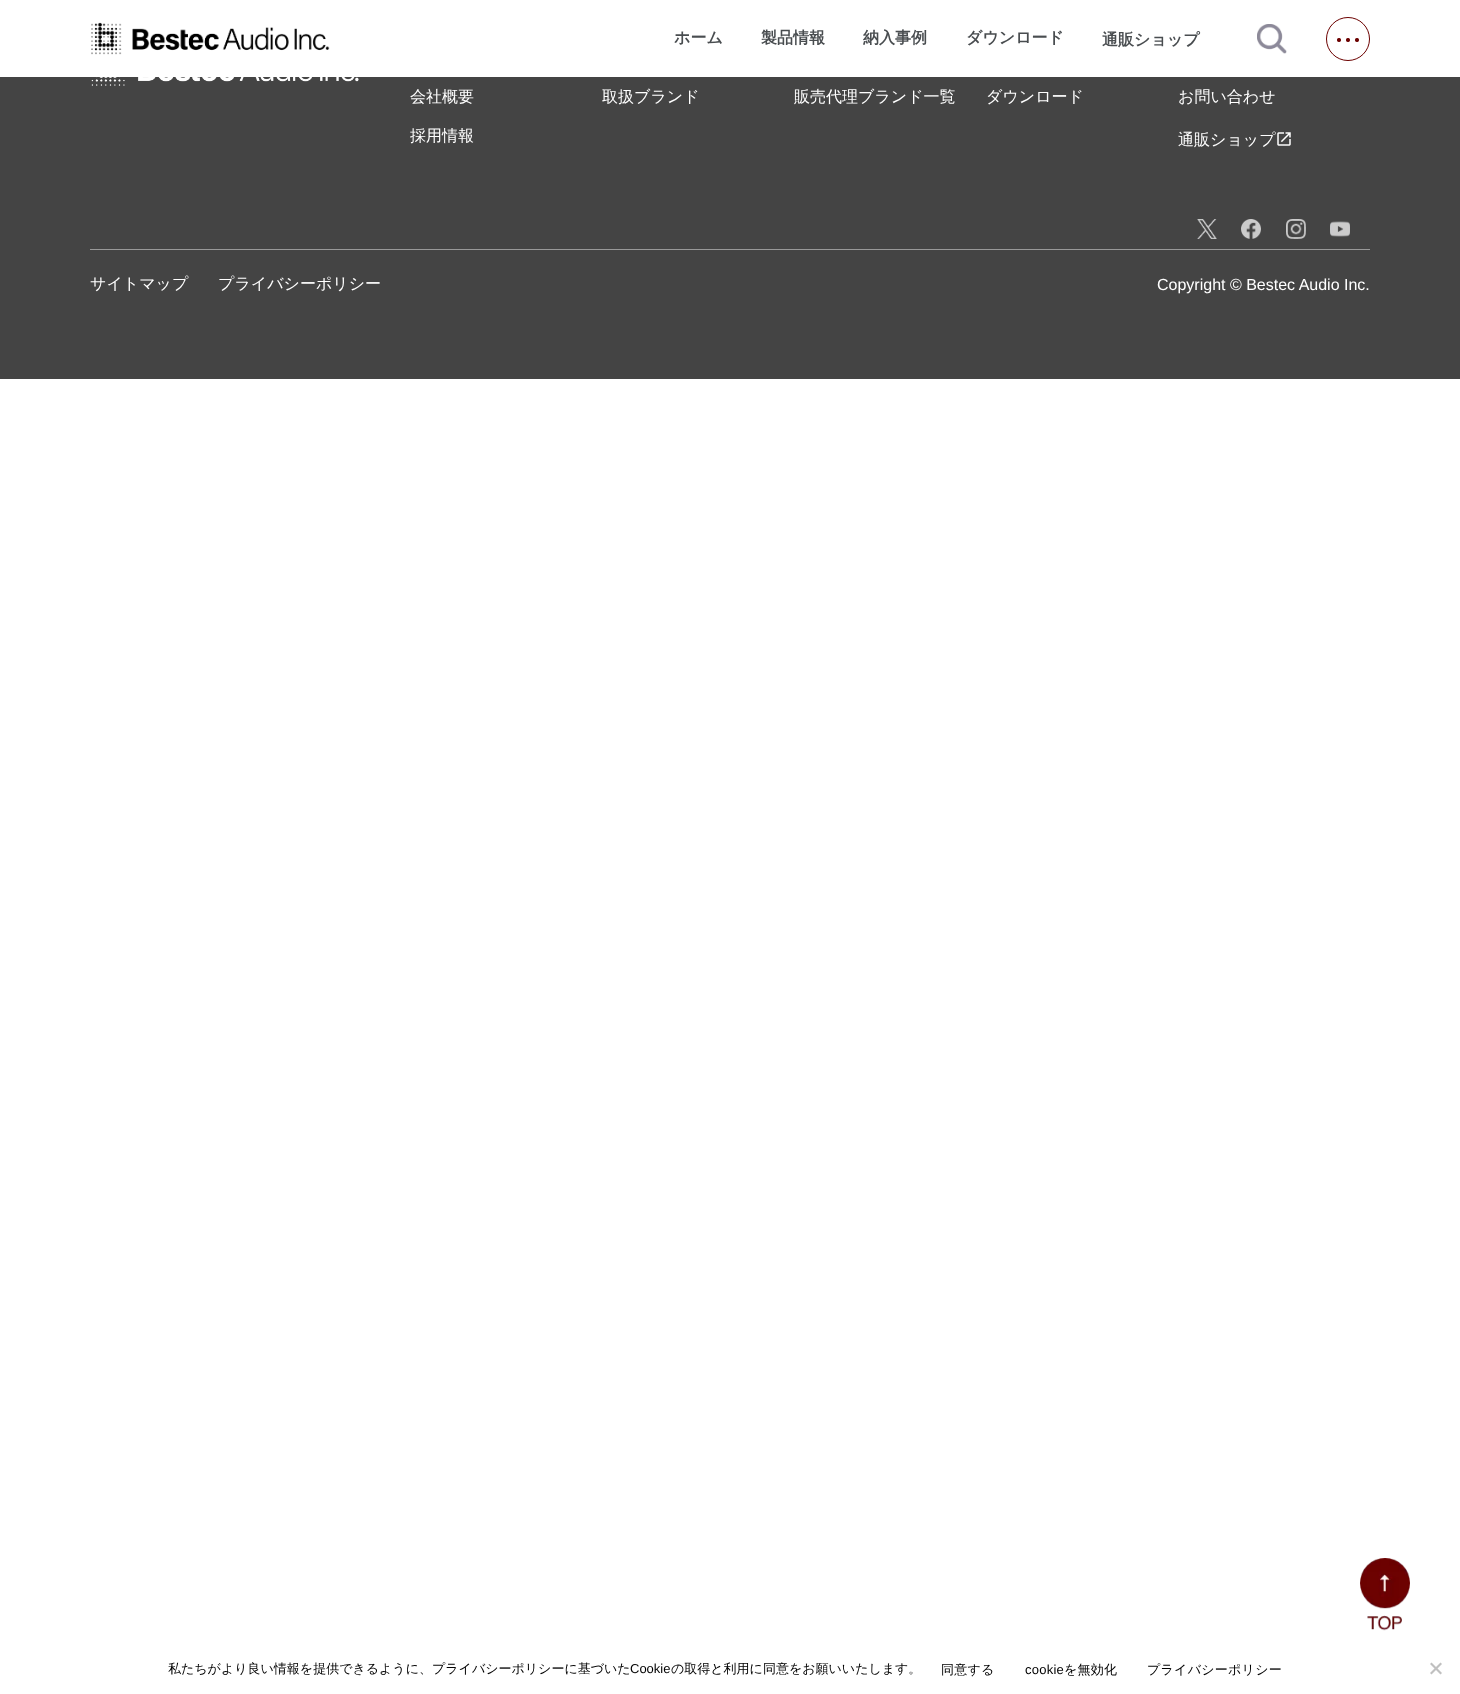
<!DOCTYPE html>
<meta charset="utf-8">
<style>body { margin: 0 } canvas { display: block }</style>
<canvas id="canvas" width="1460" height="1694"></canvas>
<script type="module">
  const canvas = document.getElementById("canvas");
  const ctx = canvas.getContext("2d");
  ctx.miterLimit = 4;
  ctx.fontKerning = "normal";
  async function loadImage(src) {
    const img = new Image();
    img.src = src;
    await img.decode();
    return img;
  }

  ctx.fillStyle = "#ffffff";
  ctx.fillRect(0, 0, 1460, 1694);
  ctx.drawImage(await loadImage("img1.png"), 91, 22, 239, 33);
  ctx.font = "bold 16px WenQuanYi Zen Hei";
  ctx.fillStyle = "#494d50";
  ctx.fillText("ホーム", 674, 43);
  ctx.fillText("製品情報", 761, 43);
  ctx.fillText("納入事例", 863, 43);
  ctx.fillText("ダウンロード", 966, 43);
  ctx.fillText("通販ショップ", 1102, 45);
  ctx.drawImage(await loadImage("img2.png"), 1257, 24, 30, 30);
  ctx.beginPath();
  ctx.arc(1348, 39, 21.5, 0, Math.PI * 2);
  ctx.strokeStyle = "#6c0100";
  ctx.stroke();
  ctx.drawImage(await loadImage("img3.png"), 1337, 38, 22, 4);
  ctx.fillStyle = "#444444";
  ctx.fillRect(0, 77, 1460, 302);
  ctx.drawImage(await loadImage("img4.png"), 91, 77, 268, 9);
  ctx.font = "500 16px WenQuanYi Zen Hei";
  ctx.fillStyle = "#ffffff";
  ctx.fillText("会社概要", 410, 102);
  ctx.fillText("取扱ブランド", 602, 102);
  ctx.fillText("販売代理ブランド一覧", 794, 102);
  ctx.fillText("ダウンロード", 986, 102);
  ctx.fillText("採用情報", 410, 141);
  ctx.fillText("お問い合わせ", 1178, 102);
  ctx.fillText("通販ショップ", 1178, 145);
  ctx.drawImage(await loadImage("img5.png"), 1277, 132, 14, 14);
  ctx.drawImage(await loadImage("img6.png"), 1197, 219, 20, 20);
  ctx.drawImage(await loadImage("img7.png"), 1241, 219, 20, 20);
  ctx.drawImage(await loadImage("img8.png"), 1286, 219, 20, 20);
  ctx.drawImage(await loadImage("img9.png"), 1330, 221, 20, 16);
  ctx.fillStyle = "#999999";
  ctx.fillRect(90, 249, 1280, 1);
  ctx.fillStyle = "#ffffff";
  ctx.fillText("サイトマップ", 90, 289);
  ctx.fillText("プライバシーポリシー", 218, 289);
  ctx.font = "16px Liberation Sans";
  ctx.fillText("Copyright © Bestec Audio Inc.", 1157, 290);
  ctx.drawImage(await loadImage("img10.png"), 1360, 1558, 50, 73);
  ctx.font = "500 13px WenQuanYi Zen Hei";
  ctx.fillStyle = "#000000";
  ctx.fillText("私たちがより良い情報を提供できるように、プライバシーポリシーに基づいた", 168, 1673);
  ctx.font = "13px Liberation Sans";
  ctx.fillText("Cookie", 630, 1673);
  ctx.font = "500 13px WenQuanYi Zen Hei";
  ctx.fillText("の取得と利用に同意をお願いいたします。", 671, 1673);
  ctx.letterSpacing = "0.25px";
  ctx.fillText("同意する", 941, 1674);
  ctx.font = "13px Liberation Sans";
  ctx.fillText("cookie", 1025, 1674);
  ctx.font = "500 13px WenQuanYi Zen Hei";
  ctx.fillText("を無効化", 1064, 1674);
  ctx.fillText("プライバシーポリシー", 1147, 1674);
  ctx.fillStyle = "#c0c0c0";
  ctx.beginPath();
  ctx.moveTo(1440.5, 1662.5);
  ctx.lineTo(1442, 1664);
  ctx.lineTo(1431.5, 1674.5);
  ctx.lineTo(1430, 1673);
  ctx.closePath();
  ctx.fill();
  ctx.beginPath();
  ctx.moveTo(1430, 1664);
  ctx.lineTo(1431.5, 1662.5);
  ctx.lineTo(1442, 1673);
  ctx.lineTo(1440.5, 1674.5);
  ctx.closePath();
  ctx.fill();
</script>
